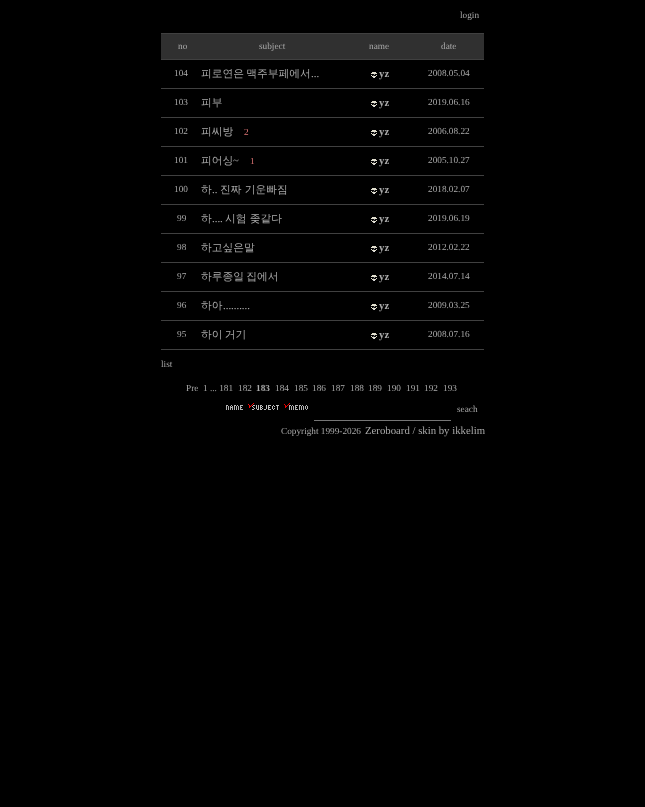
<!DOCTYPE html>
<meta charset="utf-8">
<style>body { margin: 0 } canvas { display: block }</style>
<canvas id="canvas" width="645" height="807"></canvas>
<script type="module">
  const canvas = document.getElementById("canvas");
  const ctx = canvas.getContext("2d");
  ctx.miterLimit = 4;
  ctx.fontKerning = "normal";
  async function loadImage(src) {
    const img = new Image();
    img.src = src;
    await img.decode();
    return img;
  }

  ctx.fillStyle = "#000000";
  ctx.fillRect(0, 0, 645, 807);
  ctx.font = "9.25px Liberation Serif";
  ctx.fillStyle = "#aaaaaa";
  ctx.fillText("login", 460, 18);
  ctx.fillStyle = "#404040";
  ctx.fillRect(161, 33, 323, 1);
  ctx.fillStyle = "#303030";
  ctx.fillRect(161, 34, 323, 25);
  ctx.fillStyle = "#aaaaaa";
  ctx.fillText("no", 178, 49);
  ctx.fillText("subject", 259, 49);
  ctx.fillText("name", 369, 49);
  ctx.fillText("date", 441, 49);
  ctx.fillStyle = "#404040";
  ctx.fillRect(161, 59, 323, 1);
  ctx.fillStyle = "#aaaaaa";
  ctx.fillText("104", 174, 76);
  ctx.wordSpacing = "-1px";
  ctx.font = "500 10.75px WenQuanYi Zen Hei";
  ctx.fillText("피로연은 맥주부페에서", 201, 77);
  ctx.wordSpacing = "0px";
  ctx.font = "10.75px Liberation Serif";
  ctx.fillText("...", 311, 77);
  ctx.drawImage(await loadImage("img1.png"), 371, 72, 6, 6);
  ctx.font = "bold 10.75px Liberation Serif";
  ctx.fillText("yz", 379, 77);
  ctx.font = "9.25px Liberation Serif";
  ctx.fillText("2008.05.04", 428, 76);
  ctx.fillStyle = "#404040";
  ctx.fillRect(161, 88, 323, 1);
  ctx.fillStyle = "#aaaaaa";
  ctx.fillText("103", 174, 105);
  ctx.font = "500 10.75px WenQuanYi Zen Hei";
  ctx.fillText("피부", 201, 106);
  ctx.drawImage(await loadImage("img1.png"), 371, 101, 6, 6);
  ctx.font = "bold 10.75px Liberation Serif";
  ctx.fillText("yz", 379, 106);
  ctx.font = "9.25px Liberation Serif";
  ctx.fillText("2019.06.16", 428, 105);
  ctx.fillStyle = "#404040";
  ctx.fillRect(161, 117, 323, 1);
  ctx.fillStyle = "#aaaaaa";
  ctx.fillText("102", 174, 134);
  ctx.font = "500 10.75px WenQuanYi Zen Hei";
  ctx.fillText("피씨방", 201, 135);
  ctx.font = "9.25px Liberation Serif";
  ctx.fillStyle = "#de7575";
  ctx.fillText("2", 244, 135);
  ctx.drawImage(await loadImage("img1.png"), 371, 130, 6, 6);
  ctx.font = "bold 10.75px Liberation Serif";
  ctx.fillStyle = "#aaaaaa";
  ctx.fillText("yz", 379, 135);
  ctx.font = "9.25px Liberation Serif";
  ctx.fillText("2006.08.22", 428, 134);
  ctx.fillStyle = "#404040";
  ctx.fillRect(161, 146, 323, 1);
  ctx.fillStyle = "#aaaaaa";
  ctx.fillText("101", 174, 163);
  ctx.font = "500 10.75px WenQuanYi Zen Hei";
  ctx.fillText("피어싱", 201, 164);
  ctx.font = "10.75px Liberation Serif";
  ctx.fillText("~", 233, 164);
  ctx.font = "9.25px Liberation Serif";
  ctx.fillStyle = "#de7575";
  ctx.fillText("1", 250, 164);
  ctx.drawImage(await loadImage("img1.png"), 371, 159, 6, 6);
  ctx.font = "bold 10.75px Liberation Serif";
  ctx.fillStyle = "#aaaaaa";
  ctx.fillText("yz", 379, 164);
  ctx.font = "9.25px Liberation Serif";
  ctx.fillText("2005.10.27", 428, 163);
  ctx.fillStyle = "#404040";
  ctx.fillRect(161, 175, 323, 1);
  ctx.fillStyle = "#aaaaaa";
  ctx.fillText("100", 174, 192);
  ctx.font = "500 10.75px WenQuanYi Zen Hei";
  ctx.fillText("하", 201, 193);
  ctx.font = "10.75px Liberation Serif";
  ctx.fillText("..", 212, 193);
  ctx.font = "500 10.75px WenQuanYi Zen Hei";
  ctx.fillText("진짜 기운빠짐", 220, 193);
  ctx.drawImage(await loadImage("img1.png"), 371, 188, 6, 6);
  ctx.font = "bold 10.75px Liberation Serif";
  ctx.fillText("yz", 379, 193);
  ctx.font = "9.25px Liberation Serif";
  ctx.fillText("2018.02.07", 428, 192);
  ctx.fillStyle = "#404040";
  ctx.fillRect(161, 204, 323, 1);
  ctx.fillStyle = "#aaaaaa";
  ctx.fillText("99", 177, 221);
  ctx.font = "500 10.75px WenQuanYi Zen Hei";
  ctx.fillText("하", 201, 222);
  ctx.font = "10.75px Liberation Serif";
  ctx.fillText("....", 212, 222);
  ctx.font = "500 10.75px WenQuanYi Zen Hei";
  ctx.fillText("시험 좆같다", 225, 222);
  ctx.drawImage(await loadImage("img1.png"), 371, 217, 6, 6);
  ctx.font = "bold 10.75px Liberation Serif";
  ctx.fillText("yz", 379, 222);
  ctx.font = "9.25px Liberation Serif";
  ctx.fillText("2019.06.19", 428, 221);
  ctx.fillStyle = "#404040";
  ctx.fillRect(161, 233, 323, 1);
  ctx.fillStyle = "#aaaaaa";
  ctx.fillText("98", 177, 250);
  ctx.font = "500 10.75px WenQuanYi Zen Hei";
  ctx.fillText("하고싶은말", 201, 251);
  ctx.drawImage(await loadImage("img1.png"), 371, 246, 6, 6);
  ctx.font = "bold 10.75px Liberation Serif";
  ctx.fillText("yz", 379, 251);
  ctx.font = "9.25px Liberation Serif";
  ctx.fillText("2012.02.22", 428, 250);
  ctx.fillStyle = "#404040";
  ctx.fillRect(161, 262, 323, 1);
  ctx.fillStyle = "#aaaaaa";
  ctx.fillText("97", 177, 279);
  ctx.wordSpacing = "-1px";
  ctx.font = "500 10.75px WenQuanYi Zen Hei";
  ctx.fillText("하루종일 집에서", 201, 280);
  ctx.drawImage(await loadImage("img1.png"), 371, 275, 6, 6);
  ctx.wordSpacing = "0px";
  ctx.font = "bold 10.75px Liberation Serif";
  ctx.fillText("yz", 379, 280);
  ctx.font = "9.25px Liberation Serif";
  ctx.fillText("2014.07.14", 428, 279);
  ctx.fillStyle = "#404040";
  ctx.fillRect(161, 291, 323, 1);
  ctx.fillStyle = "#aaaaaa";
  ctx.fillText("96", 177, 308);
  ctx.font = "500 10.75px WenQuanYi Zen Hei";
  ctx.fillText("하아", 201, 309);
  ctx.font = "10.75px Liberation Serif";
  ctx.fillText("..........", 223, 309);
  ctx.drawImage(await loadImage("img1.png"), 371, 304, 6, 6);
  ctx.font = "bold 10.75px Liberation Serif";
  ctx.fillText("yz", 379, 309);
  ctx.font = "9.25px Liberation Serif";
  ctx.fillText("2009.03.25", 428, 308);
  ctx.fillStyle = "#404040";
  ctx.fillRect(161, 320, 323, 1);
  ctx.fillStyle = "#aaaaaa";
  ctx.fillText("95", 177, 337);
  ctx.wordSpacing = "-1px";
  ctx.font = "500 10.75px WenQuanYi Zen Hei";
  ctx.fillText("하이 거기", 201, 338);
  ctx.drawImage(await loadImage("img1.png"), 371, 333, 6, 6);
  ctx.wordSpacing = "0px";
  ctx.font = "bold 10.75px Liberation Serif";
  ctx.fillText("yz", 379, 338);
  ctx.font = "9.25px Liberation Serif";
  ctx.fillText("2008.07.16", 428, 337);
  ctx.fillStyle = "#404040";
  ctx.fillRect(161, 349, 323, 1);
  ctx.fillStyle = "#aaaaaa";
  ctx.fillText("list", 161, 367);
  ctx.fillText("Pre", 186, 391);
  ctx.fillText("1 ... 181", 203, 391);
  ctx.fillText("182", 238, 391);
  ctx.font = "bold 9.25px Liberation Serif";
  ctx.fillText("183", 256, 391);
  ctx.font = "9.25px Liberation Serif";
  ctx.fillText("184", 275, 391);
  ctx.fillText("185", 294, 391);
  ctx.fillText("186", 312, 391);
  ctx.fillText("187", 331, 391);
  ctx.fillText("188", 350, 391);
  ctx.fillText("189", 368, 391);
  ctx.fillText("190", 387, 391);
  ctx.fillText("191", 406, 391);
  ctx.fillText("192", 424, 391);
  ctx.fillText("193", 443, 391);
  ctx.drawImage(await loadImage("img2.png"), 226, 405, 17, 5);
  ctx.drawImage(await loadImage("img3.png"), 248, 403, 31, 7);
  ctx.drawImage(await loadImage("img4.png"), 284, 403, 24, 7);
  ctx.fillText("seach", 457, 412);
  ctx.fillStyle = "#767676";
  ctx.fillRect(314, 420, 137, 1);
  ctx.fillStyle = "#aaaaaa";
  ctx.fillText("Copyright 1999-2026", 281, 434);
  ctx.font = "10.75px Liberation Serif";
  ctx.fillText("Zeroboard / skin by ikkelim", 365, 434);
</script>
